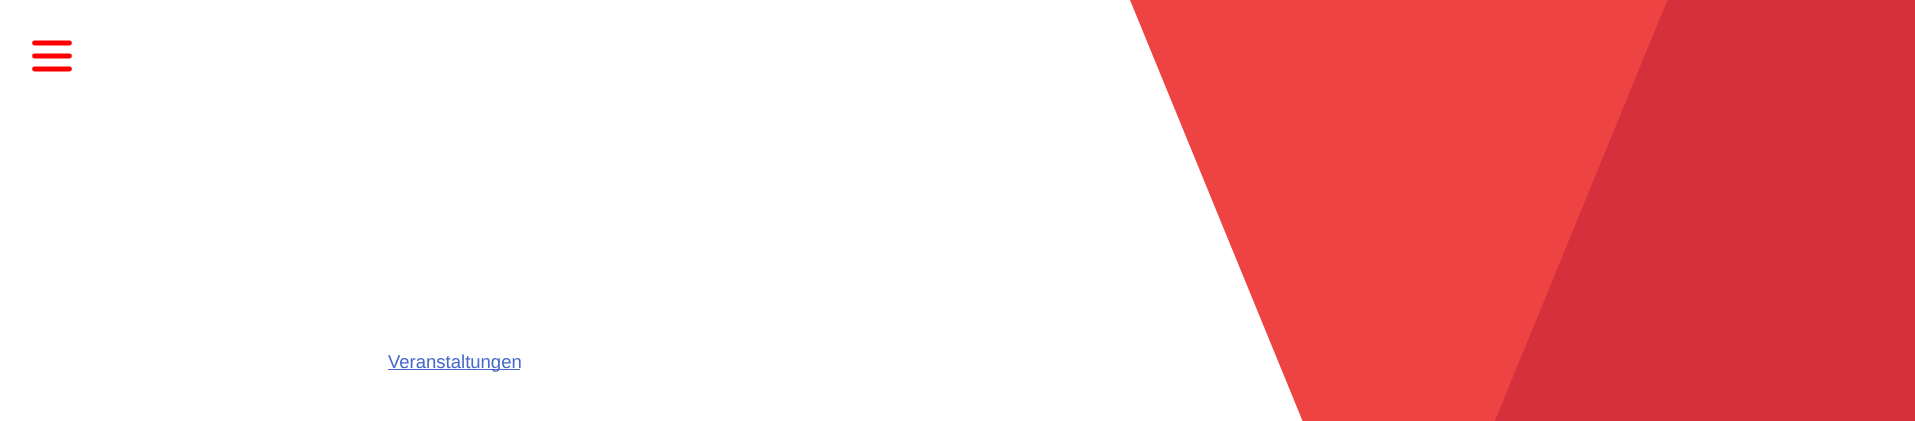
<!DOCTYPE html>
<meta charset="utf-8">
<style>body { margin: 0 } canvas { display: block }</style>
<canvas id="canvas" width="1915" height="421"></canvas>
<script type="module">
  const canvas = document.getElementById("canvas");
  const ctx = canvas.getContext("2d");
  ctx.miterLimit = 4;
  ctx.fontKerning = "normal";

  ctx.fillStyle = "#ffffff";
  ctx.fillRect(0, 0, 1915, 421);
  ctx.fillStyle = "#617fd1";
  ctx.beginPath();
  ctx.moveTo(1915, -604);
  ctx.lineTo(1130, 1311);
  ctx.lineTo(1915, 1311);
  ctx.closePath();
  ctx.fill();
  ctx.fillStyle = "rgba(235, 34, 34, 0.85)";
  ctx.beginPath();
  ctx.moveTo(1130, 0);
  ctx.lineTo(1915, 0);
  ctx.lineTo(1915, 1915);
  ctx.closePath();
  ctx.fill();
  ctx.beginPath();
  ctx.moveTo(34.5, 43);
  ctx.lineTo(69.5, 43);
  ctx.moveTo(34.5, 56);
  ctx.lineTo(69.5, 56);
  ctx.moveTo(34.5, 69);
  ctx.lineTo(69.5, 69);
  ctx.strokeStyle = "#ff0000";
  ctx.lineWidth = 4.8;
  ctx.lineCap = "round";
  ctx.stroke();
  ctx.fillStyle = "#4568c9";
  ctx.fillRect(388, 369, 132, 1);
  ctx.font = "18.5px Liberation Sans";
  ctx.fillText("Veranstaltungen", 388, 368);
</script>
